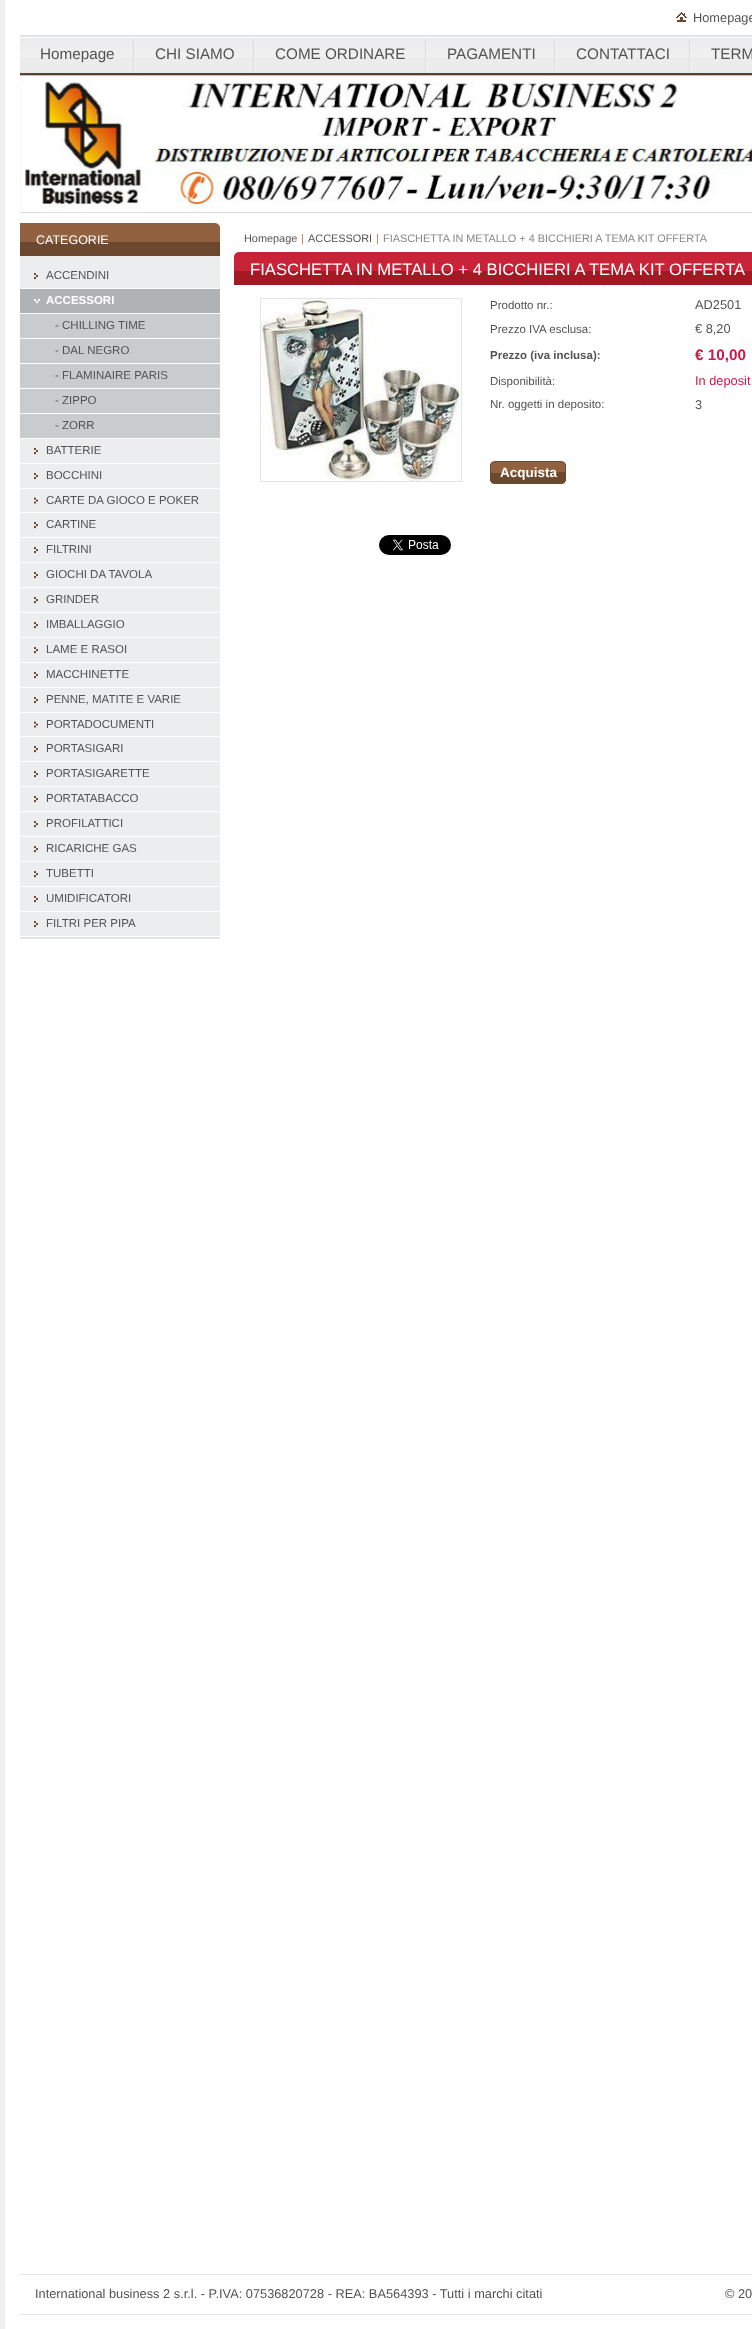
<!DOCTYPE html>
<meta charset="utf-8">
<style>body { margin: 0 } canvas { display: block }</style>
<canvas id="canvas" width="752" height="2329"></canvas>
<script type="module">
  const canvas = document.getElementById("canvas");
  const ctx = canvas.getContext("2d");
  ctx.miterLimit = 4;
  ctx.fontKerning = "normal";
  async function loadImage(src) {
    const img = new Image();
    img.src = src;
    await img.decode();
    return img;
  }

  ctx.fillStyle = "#ffffff";
  ctx.fillRect(0, 0, 752, 2329);
  ctx.fillStyle = "#efefef";
  ctx.fillRect(0, 0, 5, 2329);
  ctx.drawImage(await loadImage("img1.png"), 676, 12, 11, 10);
  ctx.font = "12.8px Liberation Sans";
  ctx.fillStyle = "#535353";
  ctx.fillText("Homepage", 693, 22);
  ctx.fillStyle = "#ececec";
  ctx.fillRect(20, 58, 732, 15);
  ctx.drawImage(await loadImage("img2.png"), 20, 35, 732, 23);
  ctx.drawImage(await loadImage("img3.png"), 133, 39, 2, 34);
  ctx.font = "15.25px Liberation Sans";
  ctx.fillStyle = "#535353";
  ctx.fillText("Homepage", 40, 59);
  ctx.drawImage(await loadImage("img3.png"), 253, 39, 2, 34);
  ctx.fillText("CHI SIAMO", 155, 59);
  ctx.drawImage(await loadImage("img3.png"), 425, 39, 2, 34);
  ctx.fillText("COME ORDINARE", 275, 59);
  ctx.drawImage(await loadImage("img3.png"), 554, 39, 2, 34);
  ctx.fillText("PAGAMENTI", 447, 59);
  ctx.drawImage(await loadImage("img3.png"), 689, 39, 2, 34);
  ctx.fillText("CONTATTACI", 576, 59);
  ctx.fillText("TERM", 711, 59);
  ctx.fillStyle = "#6c482f";
  ctx.fillRect(20, 73, 732, 2);
  ctx.drawImage(await loadImage("img4.png"), 20, 73, 732, 140);
  ctx.fillStyle = "#e2e5e8";
  ctx.fillRect(20, 937, 200, 2);
  ctx.fillStyle = "#ebedef";
  ctx.fillRect(20, 256, 200, 680);
  ctx.fillStyle = "#6c482f";
  ctx.fillRect(20, 243, 200, 13);
  ctx.drawImage(await loadImage("img5.png"), 20, 223, 200, 20);
  ctx.font = "12.5px Liberation Sans";
  ctx.fillStyle = "#ffffff";
  ctx.fillText("CATEGORIE", 36, 244);
  ctx.drawImage(await loadImage("img6.png"), 34, 273, 4, 7);
  ctx.fillRect(20, 288, 200, 1);
  ctx.font = "11.5px Liberation Sans";
  ctx.fillStyle = "#535353";
  ctx.fillText("ACCENDINI", 46, 279);
  ctx.fillStyle = "#b0b3b5";
  ctx.fillRect(20, 289, 200, 24);
  ctx.drawImage(await loadImage("img7.png"), 34, 299, 6, 5);
  ctx.fillStyle = "#ffffff";
  ctx.fillRect(20, 313, 200, 1);
  ctx.font = "bold 11.5px Liberation Sans";
  ctx.fillText("ACCESSORI", 46, 304);
  ctx.fillStyle = "#c9cccf";
  ctx.fillRect(20, 314, 200, 124);
  ctx.fillStyle = "#ffffff";
  ctx.fillRect(20, 338, 200, 1);
  ctx.font = "11.5px Liberation Sans";
  ctx.fillStyle = "#535353";
  ctx.fillText("- CHILLING TIME", 55, 329);
  ctx.fillStyle = "#ffffff";
  ctx.fillRect(20, 363, 200, 1);
  ctx.fillStyle = "#535353";
  ctx.fillText("- DAL NEGRO", 55, 354);
  ctx.fillStyle = "#ffffff";
  ctx.fillRect(20, 388, 200, 1);
  ctx.fillStyle = "#535353";
  ctx.fillText("- FLAMINAIRE PARIS", 55, 379);
  ctx.fillStyle = "#ffffff";
  ctx.fillRect(20, 413, 200, 1);
  ctx.fillStyle = "#535353";
  ctx.fillText("- ZIPPO", 55, 404);
  ctx.fillStyle = "#ffffff";
  ctx.fillRect(20, 438, 200, 1);
  ctx.fillStyle = "#535353";
  ctx.fillText("- ZORR", 55, 429);
  ctx.drawImage(await loadImage("img6.png"), 34, 448, 4, 7);
  ctx.fillStyle = "#ffffff";
  ctx.fillRect(20, 463, 200, 1);
  ctx.fillStyle = "#535353";
  ctx.fillText("BATTERIE", 46, 454);
  ctx.drawImage(await loadImage("img6.png"), 34, 473, 4, 7);
  ctx.fillStyle = "#ffffff";
  ctx.fillRect(20, 488, 200, 1);
  ctx.fillStyle = "#535353";
  ctx.fillText("BOCCHINI", 46, 479);
  ctx.drawImage(await loadImage("img8.png"), 34, 497, 4, 7);
  ctx.fillStyle = "#ffffff";
  ctx.fillRect(20, 512, 200, 1);
  ctx.fillStyle = "#535353";
  ctx.fillText("CARTE DA GIOCO E POKER", 46, 504);
  ctx.drawImage(await loadImage("img6.png"), 34, 522, 4, 7);
  ctx.fillStyle = "#ffffff";
  ctx.fillRect(20, 537, 200, 1);
  ctx.fillStyle = "#535353";
  ctx.fillText("CARTINE", 46, 528);
  ctx.drawImage(await loadImage("img6.png"), 34, 547, 4, 7);
  ctx.fillStyle = "#ffffff";
  ctx.fillRect(20, 562, 200, 1);
  ctx.fillStyle = "#535353";
  ctx.fillText("FILTRINI", 46, 553);
  ctx.drawImage(await loadImage("img6.png"), 34, 572, 4, 7);
  ctx.fillStyle = "#ffffff";
  ctx.fillRect(20, 587, 200, 1);
  ctx.fillStyle = "#535353";
  ctx.fillText("GIOCHI DA TAVOLA", 46, 578);
  ctx.drawImage(await loadImage("img6.png"), 34, 597, 4, 7);
  ctx.fillStyle = "#ffffff";
  ctx.fillRect(20, 612, 200, 1);
  ctx.fillStyle = "#535353";
  ctx.fillText("GRINDER", 46, 603);
  ctx.drawImage(await loadImage("img6.png"), 34, 622, 4, 7);
  ctx.fillStyle = "#ffffff";
  ctx.fillRect(20, 637, 200, 1);
  ctx.fillStyle = "#535353";
  ctx.fillText("IMBALLAGGIO", 46, 628);
  ctx.drawImage(await loadImage("img6.png"), 34, 647, 4, 7);
  ctx.fillStyle = "#ffffff";
  ctx.fillRect(20, 662, 200, 1);
  ctx.fillStyle = "#535353";
  ctx.fillText("LAME E RASOI", 46, 653);
  ctx.drawImage(await loadImage("img6.png"), 34, 672, 4, 7);
  ctx.fillStyle = "#ffffff";
  ctx.fillRect(20, 687, 200, 1);
  ctx.fillStyle = "#535353";
  ctx.fillText("MACCHINETTE", 46, 678);
  ctx.drawImage(await loadImage("img6.png"), 34, 697, 4, 7);
  ctx.fillStyle = "#ffffff";
  ctx.fillRect(20, 712, 200, 1);
  ctx.fillStyle = "#535353";
  ctx.fillText("PENNE, MATITE E VARIE", 46, 703);
  ctx.drawImage(await loadImage("img8.png"), 34, 721, 4, 7);
  ctx.fillStyle = "#ffffff";
  ctx.fillRect(20, 736, 200, 1);
  ctx.fillStyle = "#535353";
  ctx.fillText("PORTADOCUMENTI", 46, 728);
  ctx.drawImage(await loadImage("img6.png"), 34, 746, 4, 7);
  ctx.fillStyle = "#ffffff";
  ctx.fillRect(20, 761, 200, 1);
  ctx.fillStyle = "#535353";
  ctx.fillText("PORTASIGARI", 46, 752);
  ctx.drawImage(await loadImage("img6.png"), 34, 771, 4, 7);
  ctx.fillStyle = "#ffffff";
  ctx.fillRect(20, 786, 200, 1);
  ctx.fillStyle = "#535353";
  ctx.fillText("PORTASIGARETTE", 46, 777);
  ctx.drawImage(await loadImage("img6.png"), 34, 796, 4, 7);
  ctx.fillStyle = "#ffffff";
  ctx.fillRect(20, 811, 200, 1);
  ctx.fillStyle = "#535353";
  ctx.fillText("PORTATABACCO", 46, 802);
  ctx.drawImage(await loadImage("img6.png"), 34, 821, 4, 7);
  ctx.fillStyle = "#ffffff";
  ctx.fillRect(20, 836, 200, 1);
  ctx.fillStyle = "#535353";
  ctx.fillText("PROFILATTICI", 46, 827);
  ctx.drawImage(await loadImage("img6.png"), 34, 846, 4, 7);
  ctx.fillStyle = "#ffffff";
  ctx.fillRect(20, 861, 200, 1);
  ctx.fillStyle = "#535353";
  ctx.fillText("RICARICHE GAS", 46, 852);
  ctx.drawImage(await loadImage("img6.png"), 34, 871, 4, 7);
  ctx.fillStyle = "#ffffff";
  ctx.fillRect(20, 886, 200, 1);
  ctx.fillStyle = "#535353";
  ctx.fillText("TUBETTI", 46, 877);
  ctx.drawImage(await loadImage("img6.png"), 34, 896, 4, 7);
  ctx.fillStyle = "#ffffff";
  ctx.fillRect(20, 911, 200, 1);
  ctx.fillStyle = "#535353";
  ctx.fillText("UMIDIFICATORI", 46, 902);
  ctx.drawImage(await loadImage("img6.png"), 34, 921, 4, 7);
  ctx.fillText("FILTRI PER PIPA", 46, 927);
  ctx.font = "10.9px Liberation Sans";
  ctx.fillText("Homepage", 244, 242);
  ctx.fillStyle = "#b77e56";
  ctx.fillText("|", 301, 242);
  ctx.fillStyle = "#535353";
  ctx.fillText("ACCESSORI", 308, 242);
  ctx.fillStyle = "#b77e56";
  ctx.fillText("|", 376, 242);
  ctx.fillStyle = "#878787";
  ctx.fillText("FIASCHETTA IN METALLO + 4 BICCHIERI A TEMA KIT OFFERTA", 383, 242);
  ctx.drawImage(await loadImage("img9.png"), 234, 252, 518, 33);
  ctx.font = "16.65px Liberation Sans";
  ctx.fillStyle = "#ffffff";
  ctx.fillText("FIASCHETTA IN METALLO + 4 BICCHIERI A TEMA KIT OFFERTA", 250, 275);
  ctx.strokeStyle = "#e2e5e8";
  ctx.strokeRect(260.5, 298.5, 201, 183);
  ctx.drawImage(await loadImage("img10.png"), 261, 299, 200, 182);
  ctx.font = "11.5px Liberation Sans";
  ctx.fillStyle = "#535353";
  ctx.fillText("Prodotto nr.:", 490, 309);
  ctx.font = "12.8px Liberation Sans";
  ctx.fillText("AD2501", 695, 309);
  ctx.font = "11.5px Liberation Sans";
  ctx.fillText("Prezzo IVA esclusa:", 490, 333);
  ctx.font = "12.8px Liberation Sans";
  ctx.fillText("€ 8,20", 695, 333);
  ctx.font = "bold 11.5px Liberation Sans";
  ctx.fillText("Prezzo (iva inclusa):", 490, 359);
  ctx.font = "bold 15.25px Liberation Sans";
  ctx.fillStyle = "#cc1749";
  ctx.fillText("€ 10,00", 695, 360);
  ctx.font = "11.5px Liberation Sans";
  ctx.fillStyle = "#535353";
  ctx.fillText("Disponibilità:", 490, 385);
  ctx.font = "12.8px Liberation Sans";
  ctx.fillStyle = "#cc1749";
  ctx.fillText("In deposit", 695, 385);
  ctx.font = "11.5px Liberation Sans";
  ctx.fillStyle = "#535353";
  ctx.fillText("Nr. oggetti in deposito:", 490, 408);
  ctx.font = "12.8px Liberation Sans";
  ctx.fillText("3", 695, 409);
  ctx.drawImage(await loadImage("img11.png"), 490, 461, 71, 12);
  ctx.drawImage(await loadImage("img12.png"), 561, 461, 5, 11);
  ctx.drawImage(await loadImage("img13.png"), 490, 473, 57, 11);
  ctx.drawImage(await loadImage("img14.png"), 546, 472, 20, 12);
  ctx.font = "bold 13.5px Liberation Sans";
  ctx.fillStyle = "#ffffff";
  ctx.fillText("Acquista", 500, 477);
  ctx.drawImage(await loadImage("img15.png"), 379, 535, 72, 20);
  ctx.fillStyle = "#e2e5e8";
  ctx.fillRect(20, 2274, 732, 1);
  ctx.fillRect(20, 2314, 732, 1);
  ctx.font = "12.8px Liberation Sans";
  ctx.fillStyle = "#535353";
  ctx.fillText("International business 2 s.r.l. - P.IVA: 07536820728 - REA: BA564393 - Tutti i marchi citati", 35, 2298);
  ctx.fillText("© 20", 725, 2298);
</script>
